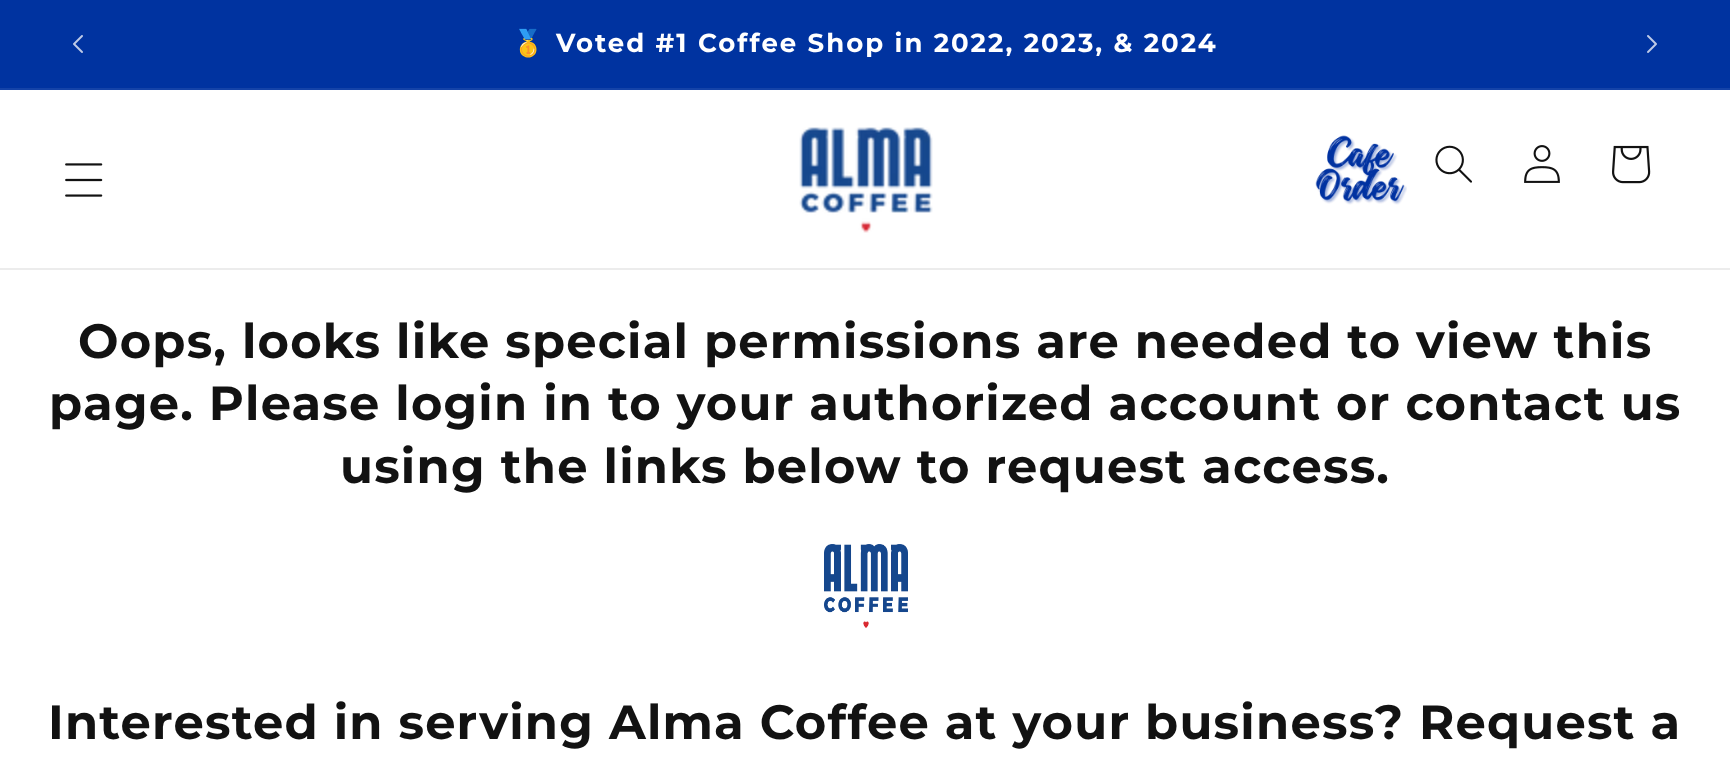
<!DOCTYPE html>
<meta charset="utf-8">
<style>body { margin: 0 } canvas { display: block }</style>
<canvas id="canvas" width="1730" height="766"></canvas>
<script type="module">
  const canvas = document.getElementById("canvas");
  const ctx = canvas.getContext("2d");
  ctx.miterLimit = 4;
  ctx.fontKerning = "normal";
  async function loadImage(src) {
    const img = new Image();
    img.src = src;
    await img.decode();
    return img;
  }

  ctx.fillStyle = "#ffffff";
  ctx.fillRect(0, 0, 1730, 766);
  ctx.fillStyle = "#0033a0";
  ctx.fillRect(0, 0, 1730, 88);
  ctx.fillStyle = "#1443a8";
  ctx.fillRect(0, 88, 1730, 2);
  ctx.drawImage(await loadImage("img1.png"), 73, 35, 10, 18);
  ctx.letterSpacing = "2px";
  ctx.font = "bold 26px Noto Color Emoji";
  ctx.fillStyle = "#ffffff";
  ctx.fillText("🥇", 512, 52);
  ctx.font = "bold 26px Montserrat";
  ctx.fillText("Voted #1 Coffee Shop in 2022, 2023, & 2024", 556, 52);
  ctx.drawImage(await loadImage("img2.png"), 1647, 35, 10, 18);
  ctx.fillStyle = "#ececec";
  ctx.fillRect(0, 268, 1730, 2);
  ctx.drawImage(await loadImage("img3.png"), 65, 163, 38, 34);
  ctx.drawImage(await loadImage("img4.png"), 799, 127, 134, 106);
  ctx.drawImage(await loadImage("img5.png"), 1315, 135, 92, 70);
  ctx.drawImage(await loadImage("img6.png"), 1435, 145, 37, 38);
  ctx.drawImage(await loadImage("img7.png"), 1524, 145, 36, 38);
  ctx.drawImage(await loadImage("img8.png"), 1612, 145, 39, 39);
  ctx.letterSpacing = "1.2px";
  ctx.font = "bold 48px Montserrat";
  ctx.fillStyle = "#121212";
  ctx.fillText("Oops, looks like special permissions are needed to view this", 78, 358);
  ctx.fillText("page. Please login in to your authorized account or contact us", 49, 420);
  ctx.fillText("using the links below to request access.", 340, 483);
  ctx.drawImage(await loadImage("img9.png"), 824, 544, 84, 84);
  ctx.fillText("Interested in serving Alma Coffee at your business? Request a", 48, 739);
</script>
